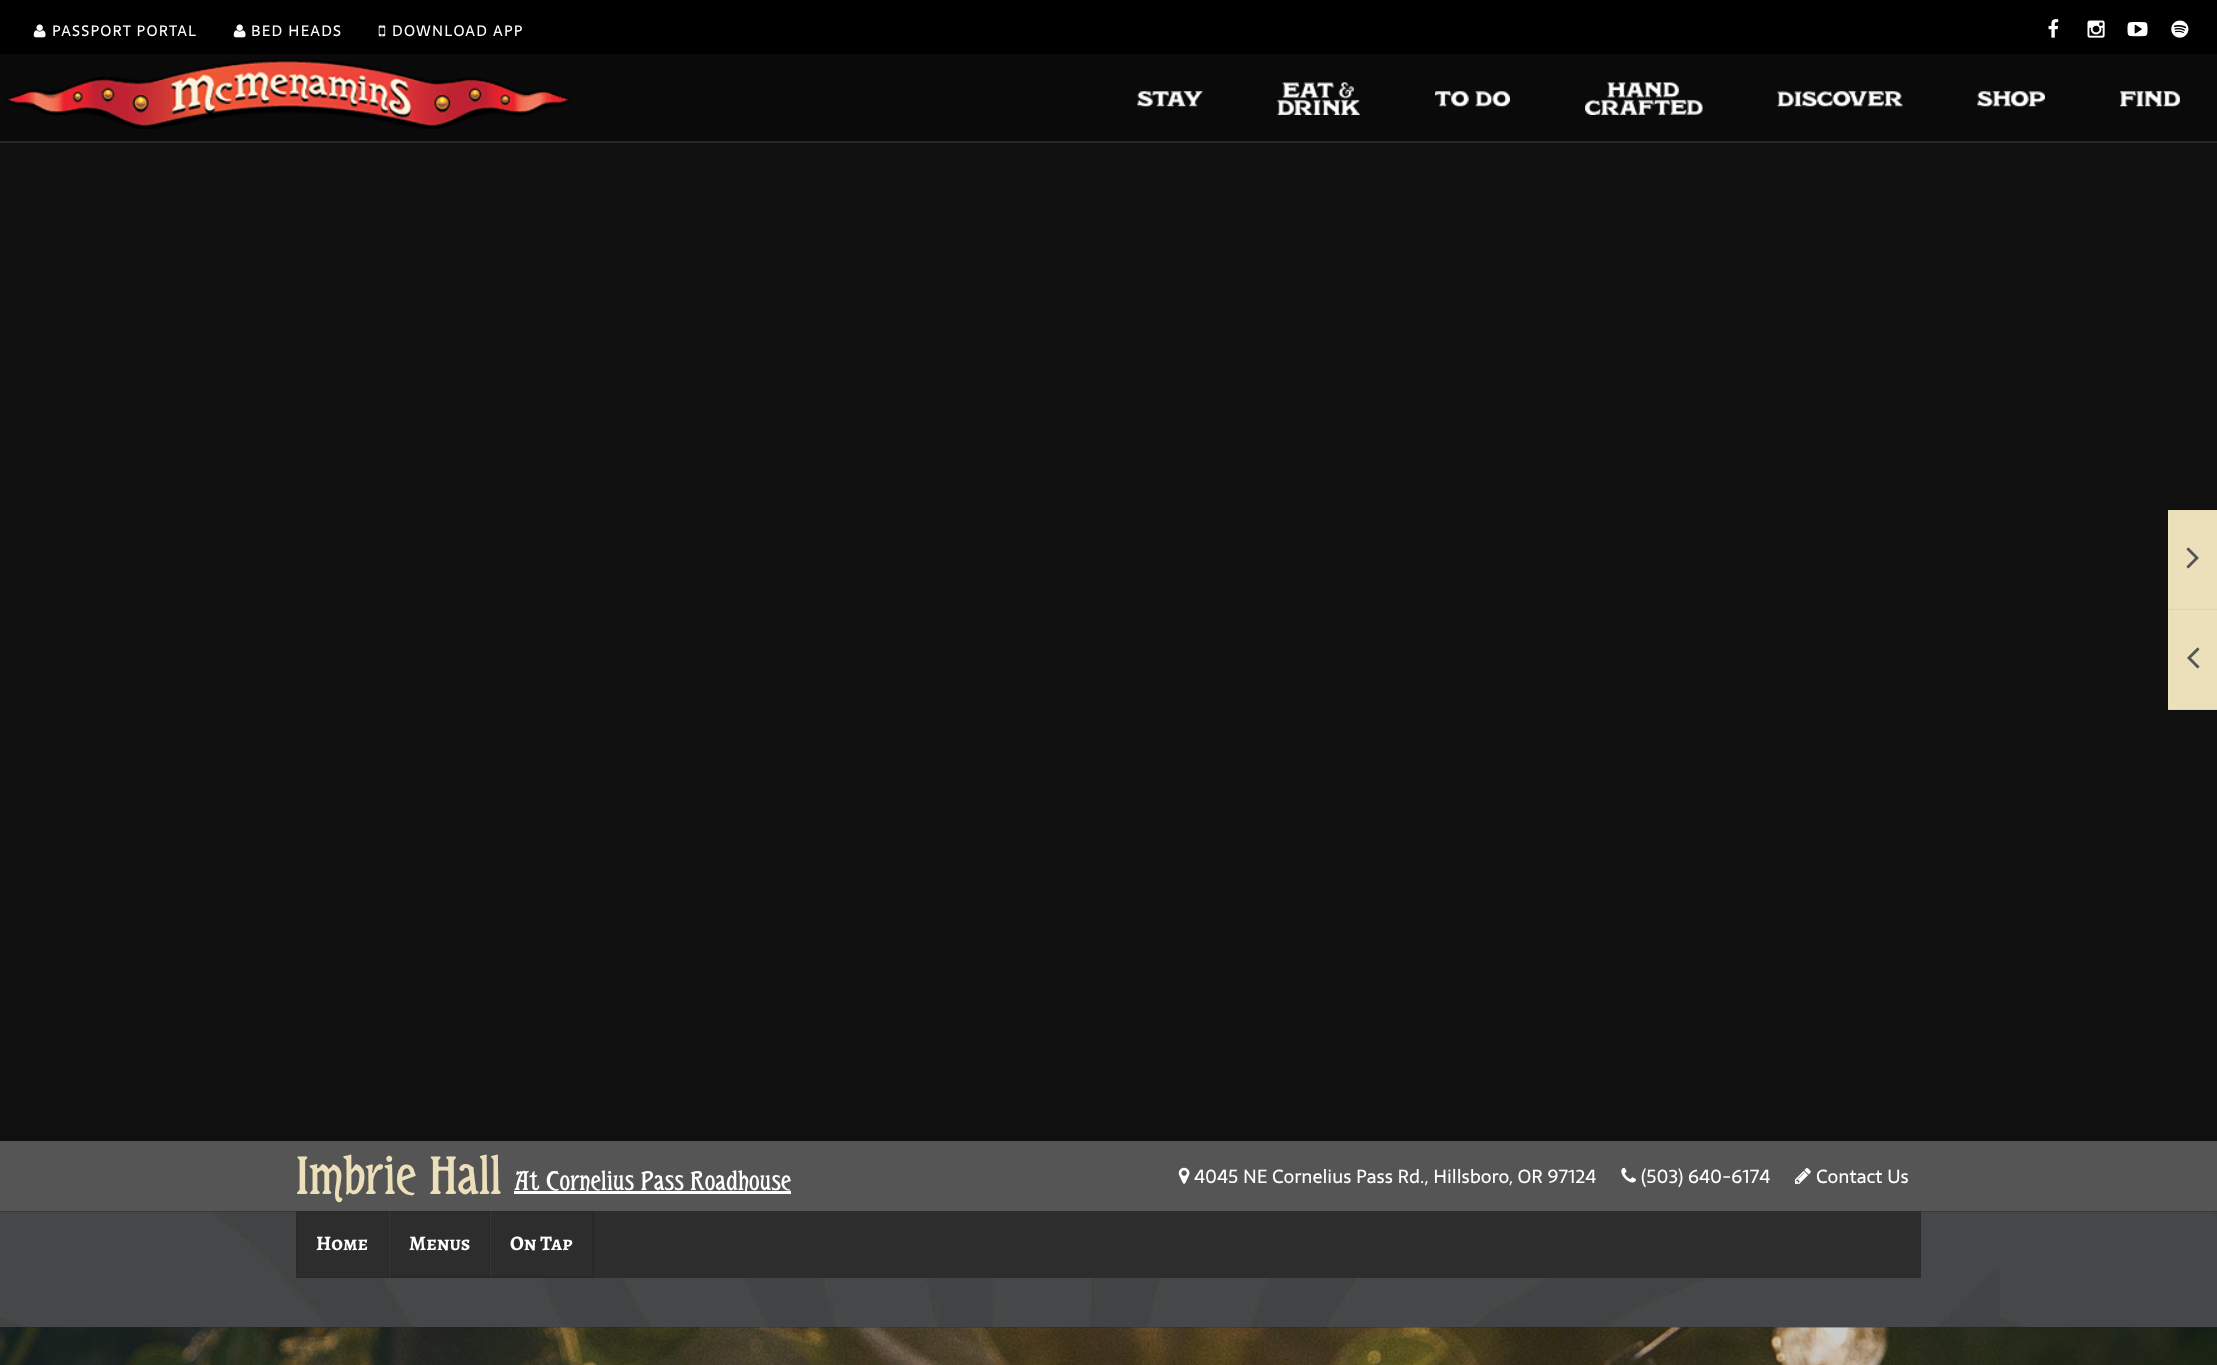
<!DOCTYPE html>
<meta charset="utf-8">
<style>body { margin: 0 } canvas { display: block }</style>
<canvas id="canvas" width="2217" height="1365"></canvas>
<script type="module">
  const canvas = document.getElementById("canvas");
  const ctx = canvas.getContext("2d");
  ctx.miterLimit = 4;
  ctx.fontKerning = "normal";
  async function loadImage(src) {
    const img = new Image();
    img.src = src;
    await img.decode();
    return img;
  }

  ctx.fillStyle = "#101010";
  ctx.fillRect(0, 0, 2217, 1365);
  ctx.fillStyle = "#000000";
  ctx.fillRect(0, 0, 2217, 54);
  ctx.drawImage(await loadImage("img1.png"), 33, 24, 13, 14);
  ctx.letterSpacing = "1.25px";
  ctx.font = "15px Sarala";
  ctx.fillStyle = "#ffffff";
  ctx.fillText("PASSPORT PORTAL", 52, 36);
  ctx.drawImage(await loadImage("img1.png"), 233, 24, 13, 14);
  ctx.fillText("BED HEADS", 251, 36);
  ctx.drawImage(await loadImage("img2.png"), 378, 25, 8, 12);
  ctx.fillText("DOWNLOAD APP", 392, 36);
  ctx.drawImage(await loadImage("img3.png"), 2048, 19, 11, 19);
  ctx.drawImage(await loadImage("img4.png"), 2087, 20, 18, 18);
  ctx.drawImage(await loadImage("img5.png"), 2127, 22, 21, 15);
  ctx.drawImage(await loadImage("img6.png"), 2171, 20, 18, 18);
  ctx.fillStyle = "#282828";
  ctx.beginPath();
  ctx.moveTo(0, 141);
  ctx.lineTo(0, 143);
  ctx.lineTo(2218, 143);
  ctx.lineTo(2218, 55);
  ctx.lineTo(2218, 141);
  ctx.closePath();
  ctx.fill();
  ctx.fillStyle = "#0a0a0a";
  ctx.fillRect(0, 54, 2217, 87);
  ctx.drawImage(await loadImage("img7.png"), 6, 60, 565, 69);
  ctx.drawImage(await loadImage("img8.png"), 1137, 91, 66, 16);
  ctx.drawImage(await loadImage("img9.png"), 1277, 82, 83, 33);
  ctx.drawImage(await loadImage("img10.png"), 1435, 91, 75, 16);
  ctx.drawImage(await loadImage("img11.png"), 1585, 82, 118, 33);
  ctx.drawImage(await loadImage("img12.png"), 1777, 91, 126, 16);
  ctx.drawImage(await loadImage("img13.png"), 1977, 91, 68, 16);
  ctx.drawImage(await loadImage("img14.png"), 2120, 91, 60, 16);
  ctx.fillStyle = "#ece0ba";
  ctx.fillRect(2169, 510, 48, 99);
  ctx.fillStyle = "#eee3c1";
  ctx.fillRect(2168, 510, 1, 99);
  ctx.fillStyle = "#e0d5b1";
  ctx.fillRect(2168, 609, 49, 1);
  ctx.drawImage(await loadImage("img15.png"), 2186, 547, 13, 22);
  ctx.fillStyle = "#ece0ba";
  ctx.fillRect(2169, 610, 48, 99);
  ctx.fillStyle = "#eee3c1";
  ctx.fillRect(2168, 610, 1, 99);
  ctx.fillStyle = "#e0d5b1";
  ctx.fillRect(2168, 709, 49, 1);
  ctx.drawImage(await loadImage("img16.png"), 2187, 647, 13, 22);
  ctx.fillStyle = "#555555";
  ctx.fillRect(0, 1141, 2217, 70);
  ctx.letterSpacing = "0px";
  ctx.font = "50px 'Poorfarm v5'";
  ctx.fillStyle = "#ece0ba";
  ctx.fillText("Imbrie Hall", 296, 1194);
  ctx.fillStyle = "#ffffff";
  ctx.fillRect(514, 1191, 277, 3);
  ctx.font = "25px 'Poorfarm v5'";
  ctx.fillText("At Cornelius Pass Roadhouse", 514, 1190);
  ctx.drawImage(await loadImage("img17.png"), 1178, 1167, 12, 17);
  ctx.font = "18.75px Sarala";
  ctx.fillText("4045 NE Cornelius Pass Rd., Hillsboro, OR 97124", 1194, 1183);
  ctx.drawImage(await loadImage("img18.png"), 1621, 1167, 15, 16);
  ctx.fillText("(503) 640-6174", 1641, 1183);
  ctx.drawImage(await loadImage("img19.png"), 1795, 1168, 16, 16);
  ctx.fillText("Contact Us", 1816, 1183);
  ctx.drawImage(await loadImage("img20.png"), 0, 1211, 2217, 117);
  ctx.fillStyle = "#2d2d2d";
  ctx.fillRect(297, 1211, 1624, 67);
  ctx.strokeStyle = "#292929";
  ctx.strokeRect(296.5, 1211.5, 92, 66);
  ctx.font = "bold 20.5px Alegreya SC";
  ctx.fillStyle = "#ffffff";
  ctx.fillText("Home", 316, 1250);
  ctx.fillStyle = "#292929";
  ctx.beginPath();
  ctx.moveTo(389, 1211);
  ctx.lineTo(490, 1211);
  ctx.lineTo(489, 1212);
  ctx.lineTo(390, 1212);
  ctx.closePath();
  ctx.fill();
  ctx.fillStyle = "#282828";
  ctx.beginPath();
  ctx.moveTo(490, 1211);
  ctx.lineTo(490, 1278);
  ctx.lineTo(489, 1276);
  ctx.lineTo(489, 1212);
  ctx.closePath();
  ctx.fill();
  ctx.beginPath();
  ctx.moveTo(490, 1278);
  ctx.lineTo(389, 1278);
  ctx.lineTo(390, 1276);
  ctx.lineTo(489, 1276);
  ctx.closePath();
  ctx.fill();
  ctx.fillStyle = "#373737";
  ctx.beginPath();
  ctx.moveTo(389, 1278);
  ctx.lineTo(389, 1211);
  ctx.lineTo(390, 1212);
  ctx.lineTo(390, 1276);
  ctx.closePath();
  ctx.fill();
  ctx.fillStyle = "#ffffff";
  ctx.fillText("Menus", 409, 1250);
  ctx.fillStyle = "#292929";
  ctx.beginPath();
  ctx.moveTo(490, 1211);
  ctx.lineTo(594, 1211);
  ctx.lineTo(592, 1212);
  ctx.lineTo(491, 1212);
  ctx.closePath();
  ctx.fill();
  ctx.fillStyle = "#282828";
  ctx.beginPath();
  ctx.moveTo(594, 1211);
  ctx.lineTo(594, 1278);
  ctx.lineTo(592, 1276);
  ctx.lineTo(592, 1212);
  ctx.closePath();
  ctx.fill();
  ctx.fillStyle = "rgba(0, 0, 0, 0.1)";
  ctx.beginPath();
  ctx.moveTo(594, 1278);
  ctx.lineTo(490, 1278);
  ctx.lineTo(491, 1276);
  ctx.lineTo(592, 1276);
  ctx.closePath();
  ctx.fill();
  ctx.fillStyle = "#373737";
  ctx.beginPath();
  ctx.moveTo(490, 1278);
  ctx.lineTo(490, 1211);
  ctx.lineTo(491, 1212);
  ctx.lineTo(491, 1276);
  ctx.closePath();
  ctx.fill();
  ctx.fillStyle = "#ffffff";
  ctx.fillText("On Tap", 510, 1250);
  ctx.drawImage(await loadImage("img21.png"), 0, 1327, 2217, 38);
</script>
